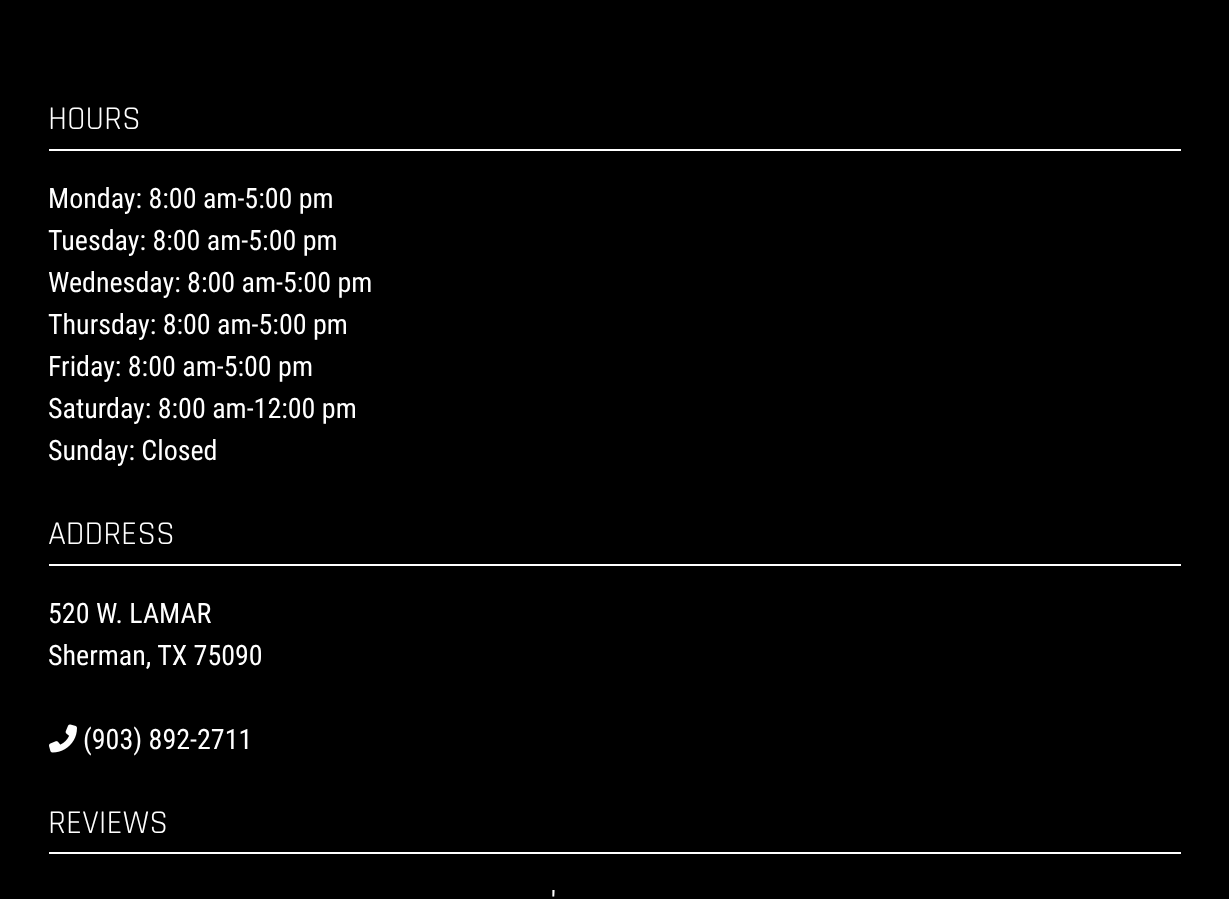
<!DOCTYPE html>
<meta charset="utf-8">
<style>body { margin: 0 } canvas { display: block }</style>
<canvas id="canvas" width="1229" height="899"></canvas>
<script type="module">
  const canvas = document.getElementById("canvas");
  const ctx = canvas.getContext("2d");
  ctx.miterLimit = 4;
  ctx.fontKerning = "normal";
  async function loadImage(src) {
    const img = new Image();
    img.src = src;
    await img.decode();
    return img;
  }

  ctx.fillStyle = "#000000";
  ctx.fillRect(0, 0, 1229, 899);
  ctx.fillStyle = "#ffffff";
  ctx.fillRect(49, 149, 1132, 2);
  ctx.font = "33.5px Rajdhani";
  ctx.fillText("HOURS", 48, 129);
  ctx.font = "28px Roboto Condensed";
  ctx.fillText("Monday: 8:00 am-5:00 pm", 48, 208);
  ctx.fillText("Tuesday: 8:00 am-5:00 pm", 48, 250);
  ctx.fillText("Wednesday: 8:00 am-5:00 pm", 48, 292);
  ctx.fillText("Thursday: 8:00 am-5:00 pm", 48, 334);
  ctx.fillText("Friday: 8:00 am-5:00 pm", 48, 376);
  ctx.fillText("Saturday: 8:00 am-12:00 pm", 48, 418);
  ctx.fillText("Sunday: Closed", 48, 460);
  ctx.fillRect(49, 564, 1132, 2);
  ctx.font = "33.5px Rajdhani";
  ctx.fillText("ADDRESS", 48, 544);
  ctx.font = "28px Roboto Condensed";
  ctx.fillText("520 W. LAMAR", 48, 623);
  ctx.fillText("Sherman, TX 75090", 48, 665);
  ctx.drawImage(await loadImage("img1.png"), 49, 724, 28, 29);
  ctx.fillText("(903) 892-2711", 83, 749);
  ctx.fillRect(49, 852, 1132, 2);
  ctx.font = "33.5px Rajdhani";
  ctx.fillText("REVIEWS", 48, 833);
  ctx.font = "28px Roboto Condensed";
  ctx.fillText("'", 551, 911);
</script>
